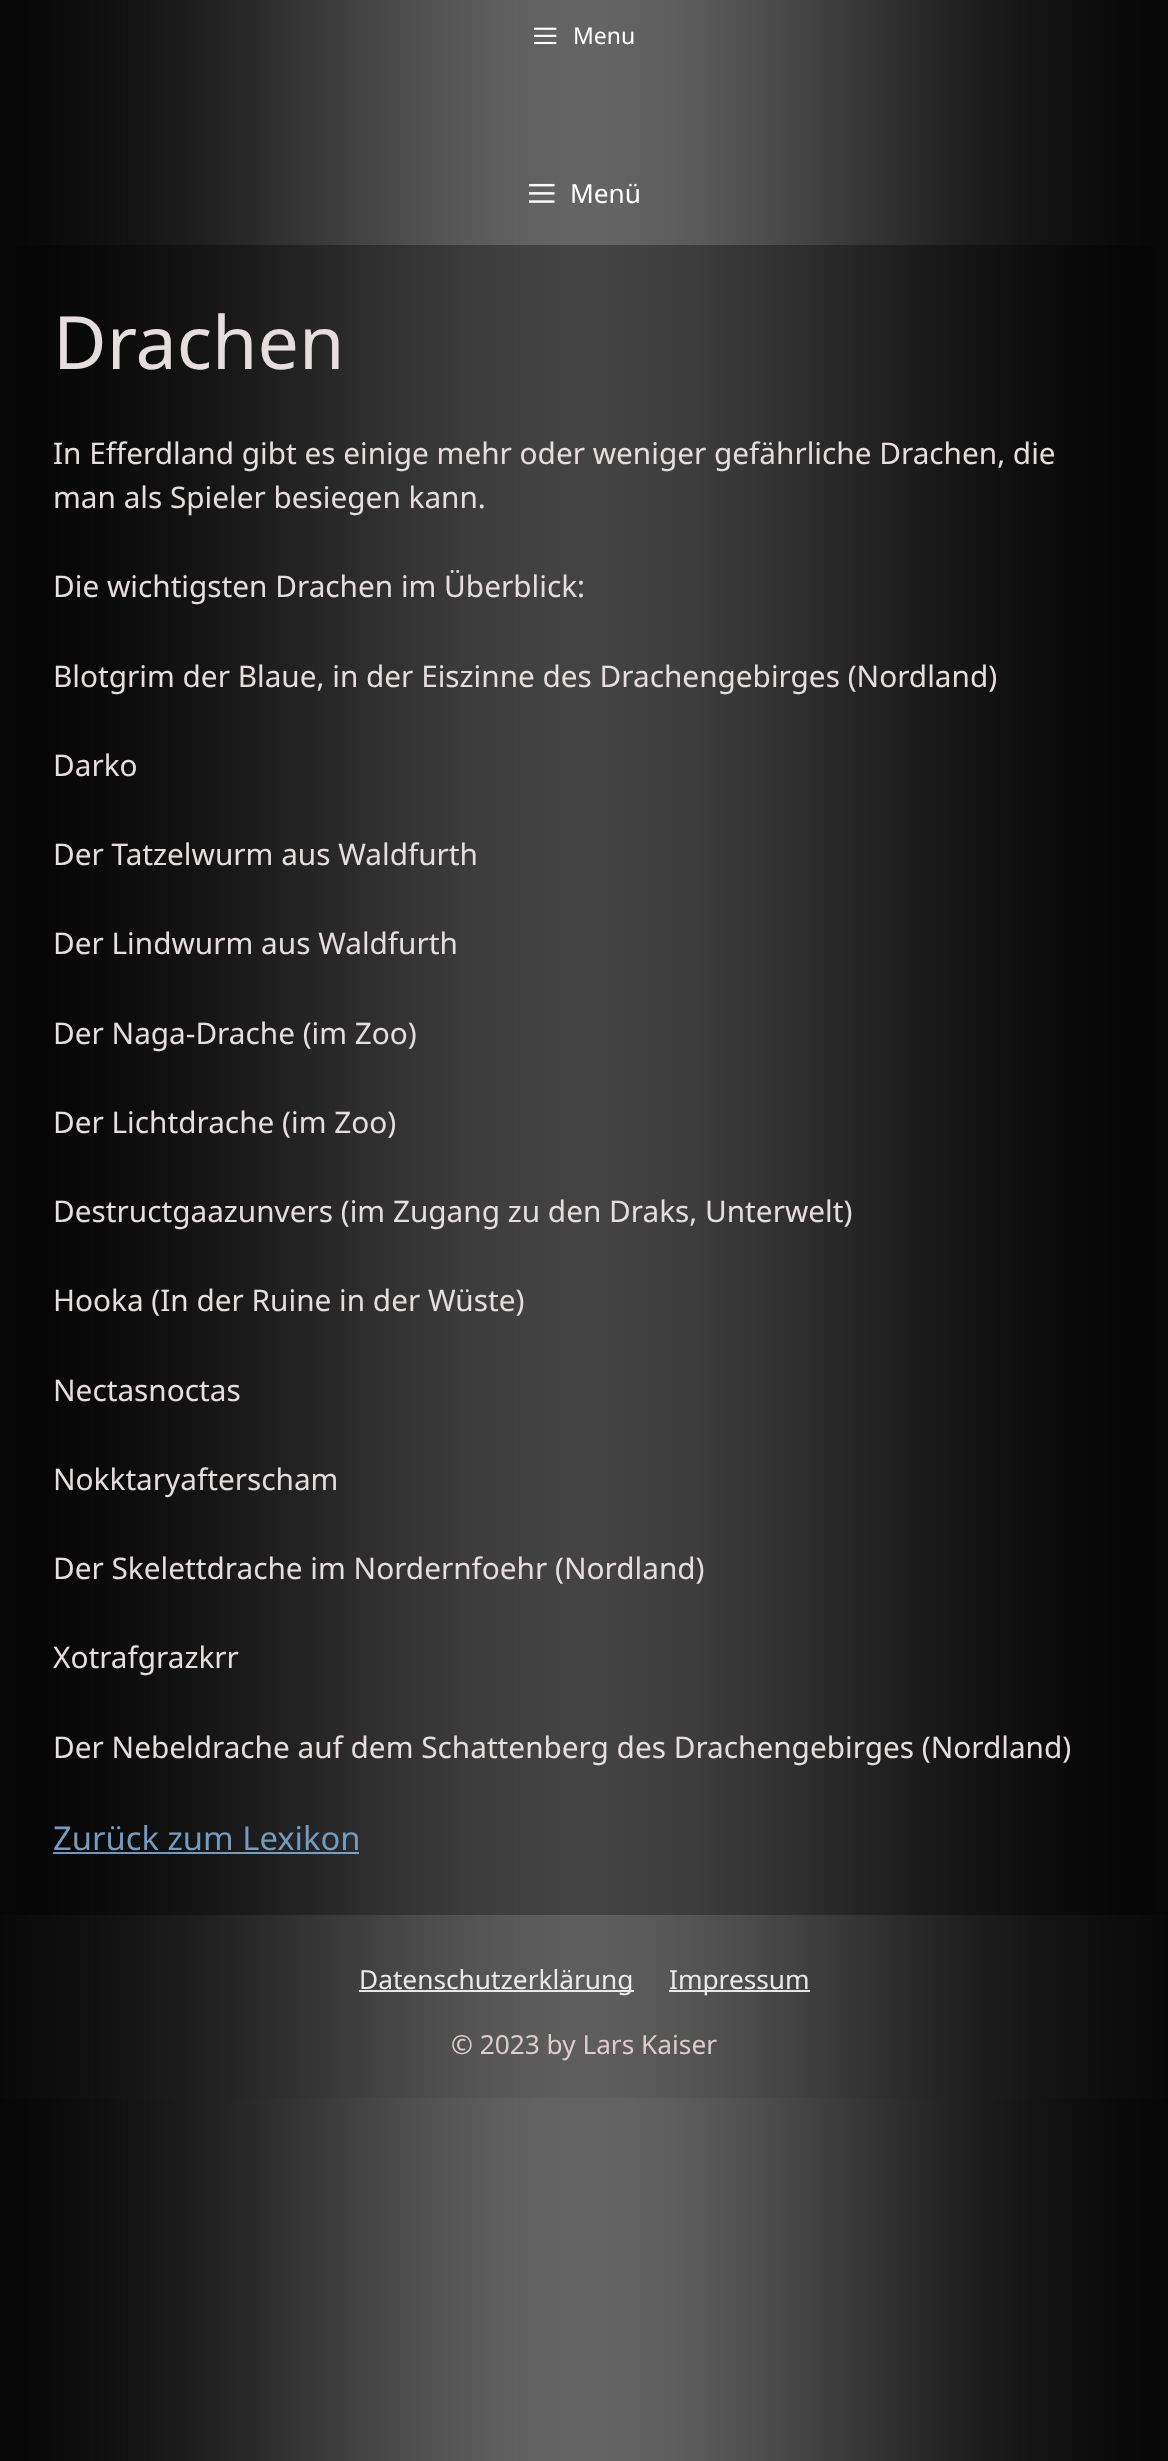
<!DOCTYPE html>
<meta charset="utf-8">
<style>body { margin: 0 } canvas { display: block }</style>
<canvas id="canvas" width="1168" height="2461"></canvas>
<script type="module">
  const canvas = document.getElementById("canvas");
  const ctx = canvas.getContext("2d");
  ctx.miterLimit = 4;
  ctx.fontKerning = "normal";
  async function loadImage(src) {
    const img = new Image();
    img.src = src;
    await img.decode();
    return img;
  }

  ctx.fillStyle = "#ffffff";
  ctx.fillRect(0, 0, 1168, 2461);
  ctx.drawImage(await loadImage("img1.png"), 0, 0, 1168, 2461);
  ctx.drawImage(await loadImage("img2.png"), 534, 27, 23, 18);
  ctx.font = "23px Noto Sans";
  ctx.fillText("Menu", 573, 44);
  ctx.drawImage(await loadImage("img3.png"), 529, 183, 26, 20);
  ctx.font = "26.25px Noto Sans";
  ctx.fillText("Menü", 570, 203);
  ctx.fillStyle = "rgba(0, 0, 0, 0.33)";
  ctx.fillRect(16, 245, 1137, 1670);
  ctx.font = "73.5px Noto Sans";
  ctx.fillStyle = "#e4dede";
  ctx.fillText("Drachen", 53, 369);
  ctx.font = "29.75px Noto Sans";
  ctx.fillText("In Efferdland gibt es einige mehr oder weniger gefährliche Drachen, die", 53, 464);
  ctx.fillText("man als Spieler besiegen kann.", 53, 508);
  ctx.fillText("Die wichtigsten Drachen im Überblick:", 53, 597);
  ctx.fillText("Blotgrim der Blaue, in der Eiszinne des Drachengebirges (Nordland)", 53, 687);
  ctx.fillText("Darko", 53, 776);
  ctx.fillText("Der Tatzelwurm aus Waldfurth", 53, 865);
  ctx.fillText("Der Lindwurm aus Waldfurth", 53, 954);
  ctx.fillText("Der Naga-Drache (im Zoo)", 53, 1044);
  ctx.fillText("Der Lichtdrache (im Zoo)", 53, 1133);
  ctx.fillText("Destructgaazunvers (im Zugang zu den Draks, Unterwelt)", 53, 1222);
  ctx.fillText("Hooka (In der Ruine in der Wüste)", 53, 1311);
  ctx.fillText("Nectasnoctas", 53, 1401);
  ctx.fillText("Nokktaryafterscham", 53, 1490);
  ctx.fillText("Der Skelettdrache im Nordernfoehr (Nordland)", 53, 1579);
  ctx.fillText("Xotrafgrazkrr", 53, 1668);
  ctx.fillText("Der Nebeldrache auf dem Schattenberg des Drachengebirges (Nordland)", 53, 1758);
  ctx.font = "32.75px Noto Sans";
  ctx.fillStyle = "#749cc0";
  ctx.fillText("Zurück zum Lexikon", 53, 1850);
  ctx.fillStyle = "rgba(142, 193, 239, 0.78)";
  ctx.fillRect(53, 1852, 306, 2);
  ctx.fillStyle = "rgba(33, 33, 33, 0.11)";
  ctx.fillRect(0, 1915, 1168, 183);
  ctx.fillStyle = "rgba(255, 255, 255, 0.87)";
  ctx.fillRect(359, 1990, 275, 2);
  ctx.font = "26.25px Noto Sans";
  ctx.fillStyle = "#e9e9e9";
  ctx.fillText("Datenschutzerklärung", 359, 1989);
  ctx.fillStyle = "rgba(255, 255, 255, 0.87)";
  ctx.fillRect(669, 1990, 141, 2);
  ctx.fillStyle = "#e9e9e9";
  ctx.fillText("Impressum", 669, 1989);
  ctx.fillStyle = "#dbcece";
  ctx.fillText("© 2023 by Lars Kaiser", 451, 2054);
</script>
